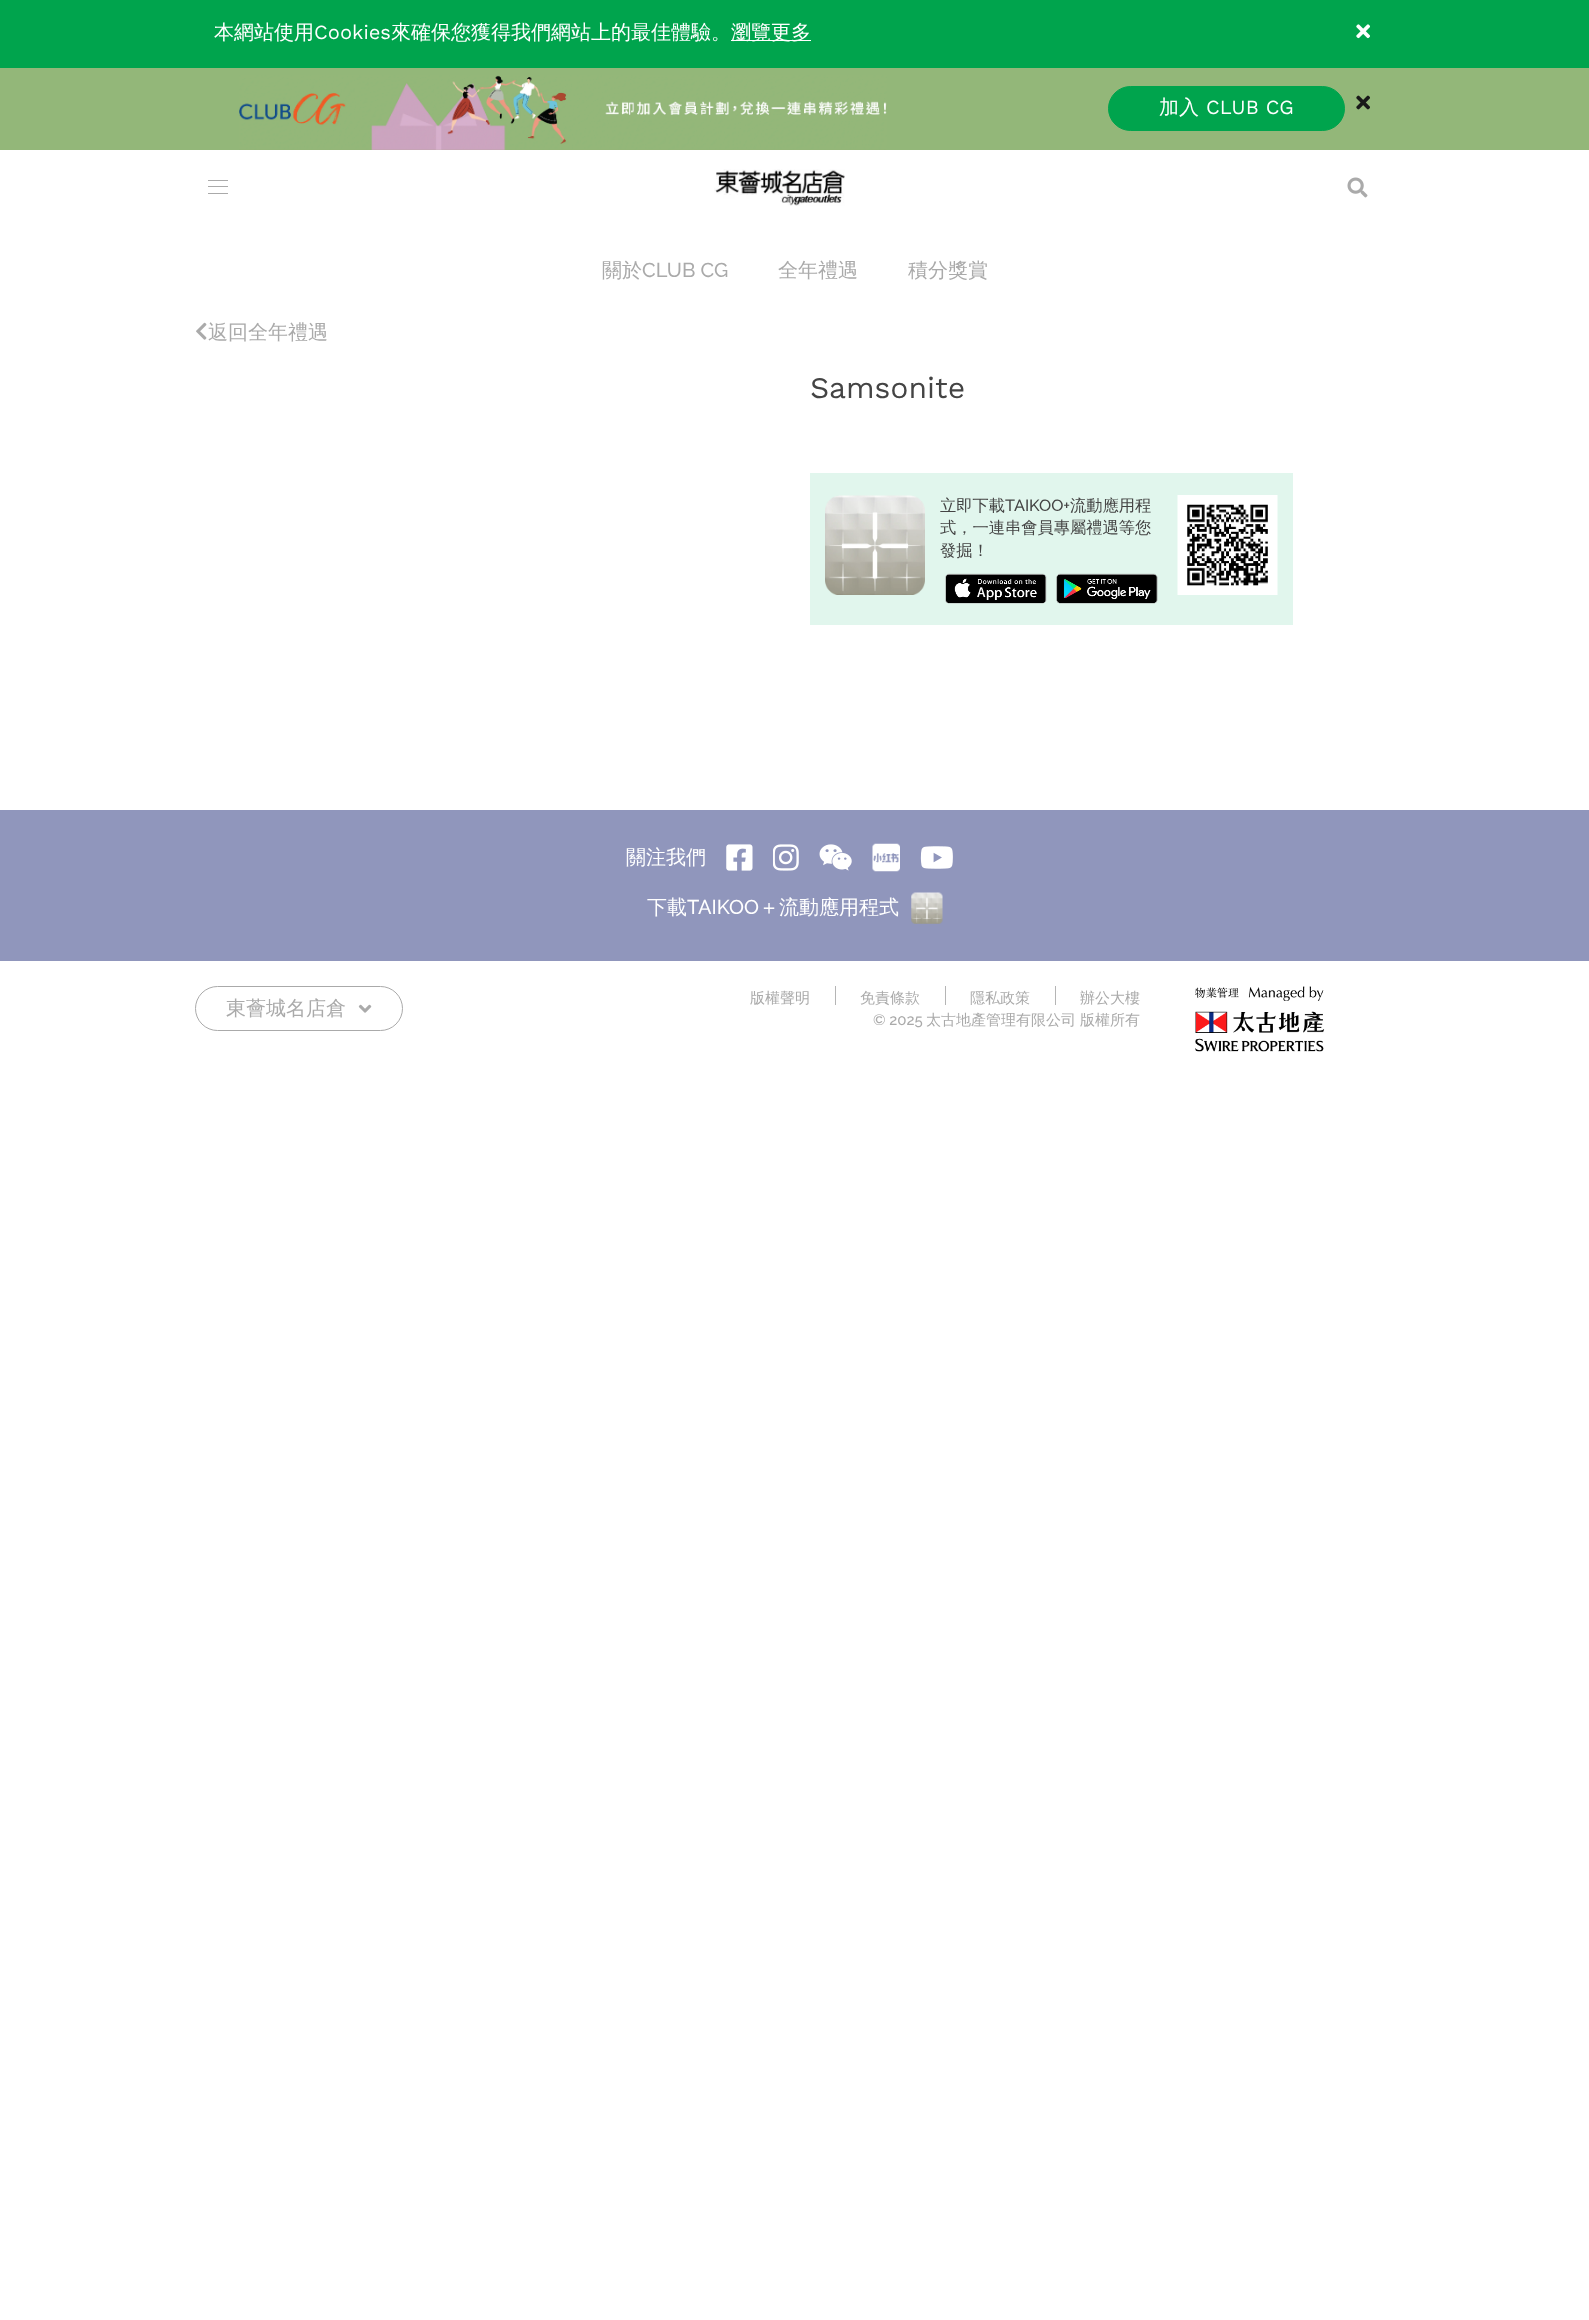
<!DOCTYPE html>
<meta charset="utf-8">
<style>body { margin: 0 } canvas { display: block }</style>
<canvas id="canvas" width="1589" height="2320"></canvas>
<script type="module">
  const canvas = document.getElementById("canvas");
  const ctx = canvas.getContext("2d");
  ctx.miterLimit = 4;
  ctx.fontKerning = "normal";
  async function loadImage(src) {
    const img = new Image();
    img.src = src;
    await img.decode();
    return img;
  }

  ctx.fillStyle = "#ffffff";
  ctx.fillRect(0, 0, 1589, 2320);
  ctx.fillStyle = "#00a44d";
  ctx.fillRect(0, 0, 1589, 68);
  ctx.font = "500 20px WenQuanYi Zen Hei";
  ctx.fillStyle = "#ffffff";
  ctx.fillText("本網站使用", 214, 39);
  ctx.font = "20px Work Sans";
  ctx.fillText("Cookies", 314, 39);
  ctx.font = "500 20px WenQuanYi Zen Hei";
  ctx.fillText("來確保您獲得我們網站上的最佳體驗。", 391, 39);
  ctx.fillRect(731, 40, 80, 1);
  ctx.fillText("瀏覽更多", 731, 39);
  ctx.drawImage(await loadImage("img1.png"), 1356, 24, 14, 15);
  ctx.fillStyle = "#93b779";
  ctx.fillRect(0, 68, 1589, 82);
  ctx.drawImage(await loadImage("img2.png"), 239, 75, 648, 75);
  ctx.fillStyle = "#00a44d";
  ctx.beginPath();
  ctx.roundRect(1108.5, 86.5, 236, 44, 22);
  ctx.fill();
  ctx.strokeStyle = "#00a44d";
  ctx.stroke();
  ctx.fillStyle = "#ffffff";
  ctx.fillText("加入", 1159, 114);
  ctx.font = "20px Work Sans";
  ctx.fillText("CLUB CG", 1206, 114);
  ctx.drawImage(await loadImage("img3.png"), 1356, 95, 14, 15);
  ctx.fillStyle = "#aaaaaa";
  ctx.fillRect(208, 180, 20, 1);
  ctx.fillRect(208, 186, 20, 1);
  ctx.fillRect(208, 193, 20, 1);
  ctx.drawImage(await loadImage("img4.png"), 714, 169, 131, 37);
  ctx.drawImage(await loadImage("img5.png"), 1347, 177, 21, 21);
  ctx.font = "500 20px WenQuanYi Zen Hei";
  ctx.fillText("關於", 602, 277);
  ctx.font = "500 20px Raleway";
  ctx.fillText("CLUB CG", 642, 277);
  ctx.font = "500 20px WenQuanYi Zen Hei";
  ctx.fillText("全年禮遇", 778, 277);
  ctx.fillText("積分獎賞", 908, 277);
  ctx.drawImage(await loadImage("img6.png"), 196, 322, 11, 18);
  ctx.fillText("返回全年禮遇", 208, 339);
  ctx.font = "30px Work Sans";
  ctx.fillStyle = "#444444";
  ctx.fillText("Samsonite", 810, 398);
  ctx.fillStyle = "#e1f6ed";
  ctx.fillRect(810, 473, 483, 152);
  ctx.drawImage(await loadImage("img7.png"), 825, 495, 100, 100);
  ctx.font = "500 16.25px WenQuanYi Zen Hei";
  ctx.fillStyle = "#444444";
  ctx.fillText("立即下載", 940, 511);
  ctx.font = "500 16.25px Raleway";
  ctx.fillText("TAIKOO+", 1005, 511);
  ctx.font = "500 16.25px WenQuanYi Zen Hei";
  ctx.fillText("流動應用程", 1070, 511);
  ctx.fillText("式，一連串會員專屬禮遇等您", 940, 533);
  ctx.fillText("發掘！", 940, 556);
  ctx.drawImage(await loadImage("img8.png"), 945, 573, 102, 31);
  ctx.drawImage(await loadImage("img9.png"), 1056, 573, 102, 31);
  ctx.drawImage(await loadImage("img10.png"), 1177, 495, 101, 100);
  ctx.fillStyle = "#9096bc";
  ctx.fillRect(0, 810, 1589, 151);
  ctx.font = "500 20px WenQuanYi Zen Hei";
  ctx.fillStyle = "#ffffff";
  ctx.fillText("關注我們", 626, 864);
  ctx.drawImage(await loadImage("img11.png"), 726, 844, 27, 27);
  ctx.drawImage(await loadImage("img12.png"), 773, 844, 26, 27);
  ctx.drawImage(await loadImage("img13.png"), 819, 844, 33, 27);
  ctx.drawImage(await loadImage("img14.png"), 872, 843, 28, 29);
  ctx.drawImage(await loadImage("img15.png"), 920, 846, 33, 23);
  ctx.fillText("下載", 647, 914);
  ctx.font = "500 20px Raleway";
  ctx.fillText("TAIKOO", 687, 914);
  ctx.font = "500 20px WenQuanYi Zen Hei";
  ctx.fillText("＋流動應用程式", 759, 914);
  ctx.drawImage(await loadImage("img16.png"), 911, 892, 32, 32);
  ctx.beginPath();
  ctx.roundRect(195.5, 986.5, 207, 44, 22);
  ctx.strokeStyle = "#aaaaaa";
  ctx.stroke();
  ctx.fillStyle = "#aaaaaa";
  ctx.fillText("東薈城名店倉", 226, 1015);
  ctx.drawImage(await loadImage("img17.png"), 358, 1004, 14, 9);
  ctx.font = "500 15px WenQuanYi Zen Hei";
  ctx.fillText("版權聲明", 750, 1003);
  ctx.fillStyle = "#b5b5b5";
  ctx.fillRect(835, 986, 1, 19);
  ctx.fillStyle = "#aaaaaa";
  ctx.fillText("免責條款", 860, 1003);
  ctx.fillStyle = "#b5b5b5";
  ctx.fillRect(945, 986, 1, 19);
  ctx.fillStyle = "#aaaaaa";
  ctx.fillText("隱私政策", 970, 1003);
  ctx.fillStyle = "#b5b5b5";
  ctx.fillRect(1055, 986, 1, 19);
  ctx.fillStyle = "#aaaaaa";
  ctx.fillText("辦公大樓", 1080, 1003);
  ctx.font = "500 15px Raleway";
  ctx.fillText("© 2025", 873, 1025);
  ctx.font = "500 15px WenQuanYi Zen Hei";
  ctx.fillText("太古地產管理有限公司", 926, 1025);
  ctx.fillText("版權所有", 1080, 1025);
  ctx.drawImage(await loadImage("img18.png"), 1195, 986, 130, 66);
</script>
